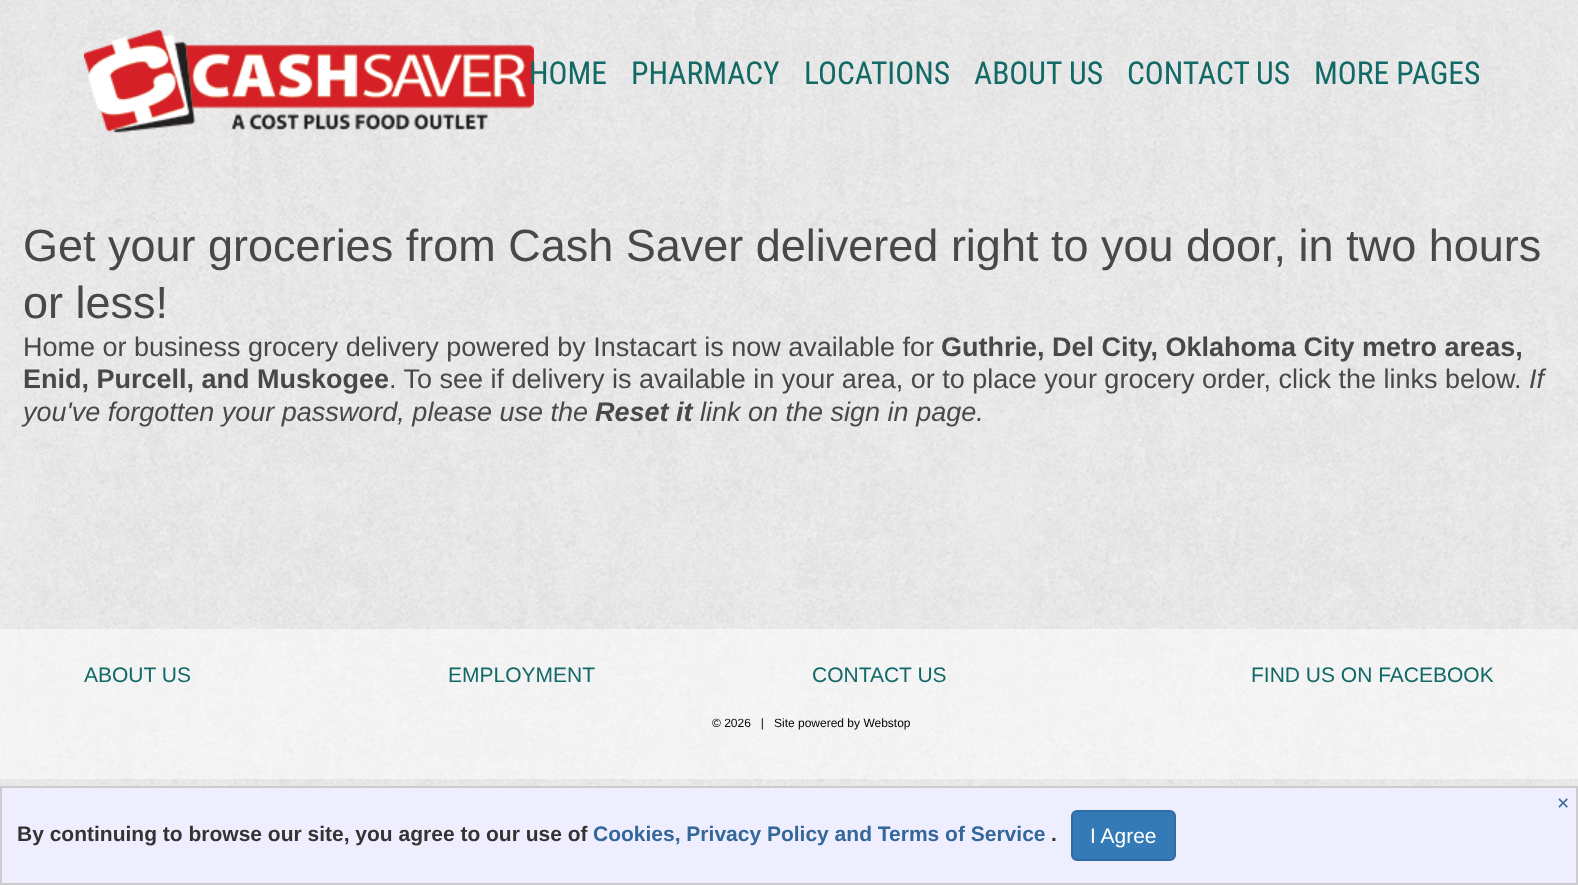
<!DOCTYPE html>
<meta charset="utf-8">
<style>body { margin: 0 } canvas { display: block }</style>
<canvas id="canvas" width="1578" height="885"></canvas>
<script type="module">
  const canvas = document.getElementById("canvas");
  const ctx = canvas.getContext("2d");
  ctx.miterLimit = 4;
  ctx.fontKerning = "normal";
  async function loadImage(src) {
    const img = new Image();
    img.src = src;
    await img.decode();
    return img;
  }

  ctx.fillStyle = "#ffffff";
  ctx.fillRect(0, 0, 1578, 885);
  ctx.drawImage(await loadImage("img1.png"), 0, 0, 1578, 786);
  ctx.drawImage(await loadImage("img2.png"), 84, 29, 450, 104);
  ctx.font = "31.5px Roboto Condensed";
  ctx.fillStyle = "#126966";
  ctx.fillText("HOME", 529, 84);
  ctx.fillText("PHARMACY", 631, 84);
  ctx.fillText("LOCATIONS", 804, 84);
  ctx.fillText("ABOUT", 974, 84);
  ctx.fillText("US", 1069, 84);
  ctx.fillText("CONTACT", 1127, 84);
  ctx.fillText("US", 1256, 84);
  ctx.fillText("MORE PAGES", 1314, 84);
  ctx.font = "45px Liberation Sans";
  ctx.fillStyle = "#484848";
  ctx.fillText("Get your groceries from Cash Saver delivered right to you door, in two hours", 23, 261);
  ctx.fillText("or less!", 23, 318);
  ctx.font = "27px Liberation Sans";
  ctx.fillText("Home or business grocery delivery powered by Instacart is now available for", 23, 356);
  ctx.font = "bold 27px Liberation Sans";
  ctx.fillText("Guthrie, Del City, Oklahoma City metro areas,", 941, 356);
  ctx.fillText("Enid, Purcell, and Muskogee", 23, 388);
  ctx.font = "27px Liberation Sans";
  ctx.fillText(". To see if delivery is available in your area, or to place your grocery order, click the links below.", 389, 388);
  ctx.font = "italic 27px Liberation Sans";
  ctx.fillText("If", 1529, 388);
  ctx.fillText("you've forgotten your password, please use the", 23, 421);
  ctx.font = "italic bold 27px Liberation Sans";
  ctx.fillText("Reset it", 595, 421);
  ctx.font = "italic 27px Liberation Sans";
  ctx.fillText("link on the sign in page.", 700, 421);
  ctx.fillStyle = "rgba(255, 255, 255, 0.5)";
  ctx.fillRect(0, 629, 1578, 150);
  ctx.font = "21px Liberation Sans";
  ctx.fillStyle = "#126966";
  ctx.fillText("ABOUT US", 84, 682);
  ctx.fillText("EMPLOYMENT", 448, 682);
  ctx.fillText("CONTACT US", 812, 682);
  ctx.fillText("FIND US ON FACEBOOK", 1251, 682);
  ctx.font = "12px Liberation Sans";
  ctx.fillStyle = "#000000";
  ctx.fillText("© 2026   |   Site powered by Webstop", 712, 727);
  ctx.fillStyle = "#eeeeff";
  ctx.beginPath();
  ctx.rect(1, 787, 1576, 97);
  ctx.fill();
  ctx.strokeStyle = "#cccccc";
  ctx.lineWidth = 2;
  ctx.stroke();
  ctx.font = "21px Liberation Sans";
  ctx.fillStyle = "#336699";
  ctx.fillText("×", 1557, 810);
  ctx.font = "bold 21px Liberation Sans";
  ctx.fillStyle = "#333333";
  ctx.fillText("By continuing to browse our site, you agree to our use of", 17, 841);
  ctx.fillStyle = "#336699";
  ctx.fillText("Cookies, Privacy Policy and Terms of Service", 593, 841);
  ctx.fillStyle = "#333333";
  ctx.fillText(".", 1051, 841);
  ctx.fillStyle = "#337ab7";
  ctx.beginPath();
  ctx.roundRect(1072, 811, 103, 49, 5);
  ctx.fill();
  ctx.strokeStyle = "#2e6da4";
  ctx.stroke();
  ctx.font = "21px Liberation Sans";
  ctx.fillStyle = "#ffffff";
  ctx.fillText("I Agree", 1090, 843);
</script>
